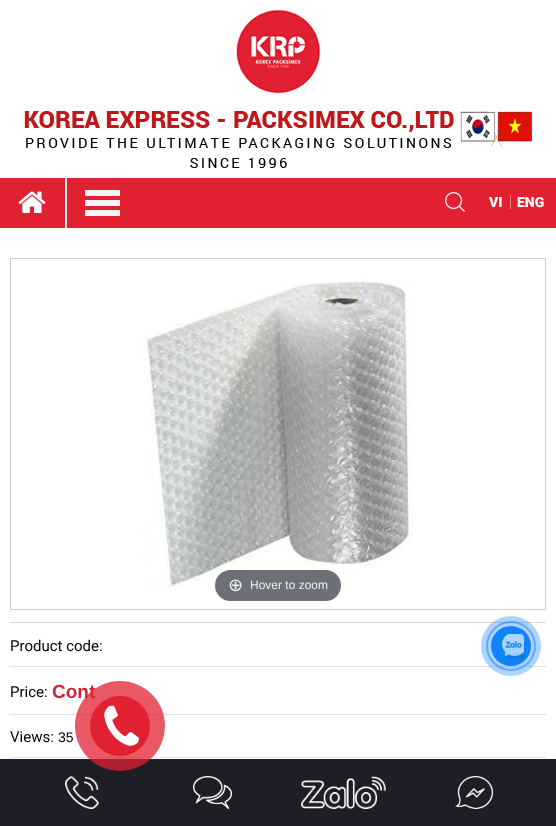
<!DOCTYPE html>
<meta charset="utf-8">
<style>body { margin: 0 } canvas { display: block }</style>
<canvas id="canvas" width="556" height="826"></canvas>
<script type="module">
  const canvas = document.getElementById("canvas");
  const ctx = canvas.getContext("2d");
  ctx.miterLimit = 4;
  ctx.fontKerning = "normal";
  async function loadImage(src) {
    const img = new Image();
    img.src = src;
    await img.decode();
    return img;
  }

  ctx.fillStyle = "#ffffff";
  ctx.fillRect(0, 0, 556, 826);
  ctx.drawImage(await loadImage("img1.png"), 236, 10, 85, 84);
  ctx.drawImage(await loadImage("img2.png"), 24, 111, 508, 57);
  ctx.fillStyle = "#e12031";
  ctx.fillRect(0, 178, 556, 50);
  ctx.drawImage(await loadImage("img3.png"), 18, 191, 28, 22);
  ctx.fillStyle = "#f4f4f4";
  ctx.fillRect(65, 178, 2, 50);
  ctx.fillRect(85, 190, 35, 6);
  ctx.fillRect(85, 200, 35, 6);
  ctx.fillRect(85, 210, 35, 6);
  ctx.drawImage(await loadImage("img4.png"), 445, 192, 20, 20);
  ctx.font = "900 14px Roboto";
  ctx.fillStyle = "#ffffff";
  ctx.fillText("VI", 489, 207);
  ctx.fillStyle = "#ff7f7f";
  ctx.fillRect(510, 195, 1, 14);
  ctx.fillStyle = "#ffffff";
  ctx.fillText("ENG", 517, 207);
  ctx.strokeStyle = "#cccccc";
  ctx.strokeRect(10.5, 258.5, 535, 351);
  ctx.drawImage(await loadImage("img5.png"), 142, 279, 272, 308);
  ctx.fillStyle = "rgba(49, 51, 61, 0.7)";
  ctx.beginPath();
  ctx.roundRect(215, 570, 126, 31, 15.5);
  ctx.fill();
  ctx.font = "18px DejaVu Sans";
  ctx.fillStyle = "#eeeeee";
  ctx.fillText("⊕", 228, 591);
  ctx.font = "12px Liberation Sans";
  ctx.fillText("Hover to zoom", 250, 589);
  ctx.fillStyle = "#d5d5d5";
  ctx.fillRect(10, 622, 536, 1);
  ctx.fillStyle = "#e3e3e3";
  ctx.fillRect(10, 666, 536, 1);
  ctx.font = "15px Roboto";
  ctx.fillStyle = "#000000";
  ctx.fillText("Product code:", 10, 651);
  ctx.fillStyle = "#e3e3e3";
  ctx.fillRect(10, 714, 536, 1);
  ctx.fillStyle = "#000000";
  ctx.fillText("Price:", 10, 697);
  ctx.font = "bold 19px Liberation Sans";
  ctx.fillStyle = "#ca2a38";
  ctx.fillText("Cont", 52, 698);
  ctx.fillStyle = "#e3e3e3";
  ctx.fillRect(10, 757, 536, 1);
  ctx.font = "15px Roboto";
  ctx.fillStyle = "#000000";
  ctx.fillText("Views:", 10, 742);
  ctx.font = "14px Liberation Sans";
  ctx.fillText("35", 58, 742);
  ctx.fillStyle = "#1e1e26";
  ctx.fillRect(0, 759, 556, 67);
  ctx.drawImage(await loadImage("img6.png"), 65, 776, 34, 33);
  ctx.drawImage(await loadImage("img7.png"), 193, 776, 39, 33);
  ctx.drawImage(await loadImage("img8.png"), 301, 776, 85, 33);
  ctx.drawImage(await loadImage("img9.png"), 455, 776, 38, 33);
  ctx.fillStyle = "#1182fc";
  ctx.beginPath();
  ctx.arc(511, 646, 20, 0, Math.PI * 2);
  ctx.fill();
  ctx.drawImage(await loadImage("img10.png"), 499, 634, 25, 25);
  ctx.beginPath();
  ctx.arc(511, 646, 24, 0, Math.PI * 2);
  ctx.strokeStyle = "rgba(17, 130, 252, 0.5)";
  ctx.lineWidth = 2;
  ctx.stroke();
  ctx.fillStyle = "rgba(17, 130, 252, 0.34)";
  ctx.beginPath();
  ctx.arc(511, 646, 30, 0, Math.PI * 2);
  ctx.fill();
  ctx.fillStyle = "rgba(225, 32, 49, 0.75)";
  ctx.beginPath();
  ctx.arc(120, 726, 45, 0, Math.PI * 2);
  ctx.fill();
  ctx.fillStyle = "#e12031";
  ctx.beginPath();
  ctx.arc(120, 726, 30, 0, Math.PI * 2);
  ctx.fill();
  ctx.drawImage(await loadImage("img11.png"), 104, 705, 35, 41);
</script>
